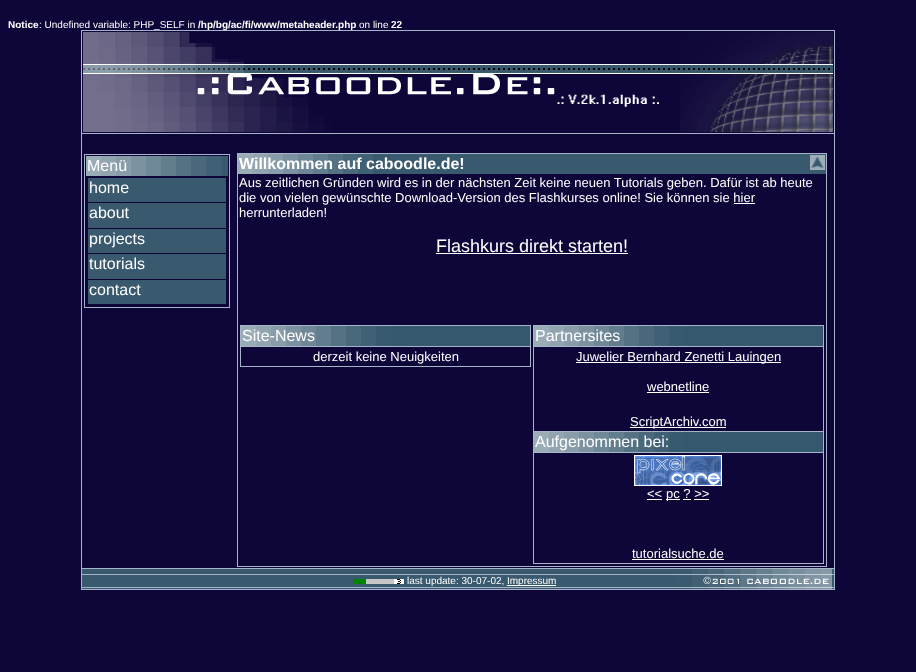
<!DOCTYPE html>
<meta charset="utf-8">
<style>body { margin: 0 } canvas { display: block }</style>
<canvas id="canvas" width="916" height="672"></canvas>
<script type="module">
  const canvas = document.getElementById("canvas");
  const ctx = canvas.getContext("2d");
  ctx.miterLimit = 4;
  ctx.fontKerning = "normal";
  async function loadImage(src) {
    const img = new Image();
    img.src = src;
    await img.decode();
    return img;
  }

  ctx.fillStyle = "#0e0639";
  ctx.fillRect(0, 0, 916, 672);
  ctx.font = "bold 10px Liberation Sans";
  ctx.fillStyle = "#ffffff";
  ctx.fillText("Notice", 8, 28);
  ctx.font = "10px Liberation Sans";
  ctx.fillText(": Undefined variable: PHP_SELF in", 39, 28);
  ctx.fillStyle = "#a7b3c8";
  ctx.fillRect(81, 30, 754, 560);
  ctx.font = "bold 10px Liberation Sans";
  ctx.fillStyle = "#ffffff";
  ctx.fillText("/hp/bg/ac/fi/www/metaheader.php", 198, 28);
  ctx.font = "10px Liberation Sans";
  ctx.fillText("on line", 359, 28);
  ctx.font = "bold 10px Liberation Sans";
  ctx.fillText("22", 391, 28);
  ctx.fillStyle = "#0e0639";
  ctx.fillRect(82, 31, 752, 102);
  ctx.drawImage(await loadImage("img1.png"), 83, 32, 750, 100);
  ctx.fillRect(82, 134, 752, 434);
  ctx.fillStyle = "#a7b3c8";
  ctx.fillRect(84, 154, 146, 154);
  ctx.fillStyle = "#0e0639";
  ctx.fillRect(85, 155, 144, 152);
  ctx.fillStyle = "#39596e";
  ctx.fillRect(221, 156, 7, 20);
  ctx.drawImage(await loadImage("img2.png"), 86, 156, 135, 20);
  ctx.font = "16px Liberation Sans";
  ctx.fillStyle = "#ffffff";
  ctx.fillText("Menü", 87, 171);
  ctx.fillStyle = "#39596e";
  ctx.fillRect(88, 178, 138, 24);
  ctx.fillStyle = "#ffffff";
  ctx.fillText("home", 89, 193);
  ctx.fillStyle = "#39596e";
  ctx.fillRect(88, 203, 138, 25);
  ctx.fillStyle = "#ffffff";
  ctx.fillText("about", 89, 218);
  ctx.fillStyle = "#39596e";
  ctx.fillRect(88, 229, 138, 24);
  ctx.fillStyle = "#ffffff";
  ctx.fillText("projects", 89, 244);
  ctx.fillStyle = "#39596e";
  ctx.fillRect(88, 254, 138, 25);
  ctx.fillStyle = "#ffffff";
  ctx.fillText("tutorials", 89, 269);
  ctx.fillStyle = "#39596e";
  ctx.fillRect(88, 280, 138, 24);
  ctx.fillStyle = "#ffffff";
  ctx.fillText("contact", 89, 295);
  ctx.fillStyle = "#a7b3c8";
  ctx.fillRect(237, 153, 590, 414);
  ctx.fillStyle = "#39596e";
  ctx.fillRect(373, 154, 453, 20);
  ctx.drawImage(await loadImage("img2.png"), 238, 154, 135, 20);
  ctx.font = "bold 16px Liberation Sans";
  ctx.fillStyle = "#ffffff";
  ctx.fillText("Willkommen auf caboodle.de!", 239, 169);
  ctx.drawImage(await loadImage("img3.png"), 810, 155, 15, 15);
  ctx.fillStyle = "#0e0639";
  ctx.fillRect(238, 174, 588, 392);
  ctx.font = "13px Liberation Sans";
  ctx.fillStyle = "#ffffff";
  ctx.fillText("Aus zeitlichen Gründen wird es in der nächsten Zeit keine neuen Tutorials geben. Dafür ist ab heute", 239, 187);
  ctx.fillText("die von vielen gewünschte Download-Version des Flashkurses online! Sie können sie hier", 239, 202);
  ctx.fillRect(734, 203, 21, 1);
  ctx.fillText("herrunterladen!", 239, 217);
  ctx.font = "18px Liberation Sans";
  ctx.fillText("Flashkurs direkt starten!", 436, 252);
  ctx.fillRect(436, 253, 192, 1);
  ctx.fillStyle = "#a7b3c8";
  ctx.fillRect(240, 325, 291, 42);
  ctx.drawImage(await loadImage("img4.png"), 241, 326, 289, 20);
  ctx.font = "16px Liberation Sans";
  ctx.fillStyle = "#ffffff";
  ctx.fillText("Site-News", 242, 341);
  ctx.fillStyle = "#0e0639";
  ctx.fillRect(241, 347, 289, 19);
  ctx.font = "13px Liberation Sans";
  ctx.fillStyle = "#ffffff";
  ctx.fillText("derzeit keine Neuigkeiten", 313, 361);
  ctx.fillStyle = "#a7b3c8";
  ctx.fillRect(533, 325, 291, 239);
  ctx.drawImage(await loadImage("img4.png"), 534, 326, 289, 20);
  ctx.font = "16px Liberation Sans";
  ctx.fillStyle = "#ffffff";
  ctx.fillText("Partnersites", 535, 341);
  ctx.fillStyle = "#0e0639";
  ctx.fillRect(534, 347, 289, 84);
  ctx.fillStyle = "#ffffff";
  ctx.fillRect(576, 362, 205, 1);
  ctx.font = "13px Liberation Sans";
  ctx.fillText("Juwelier Bernhard Zenetti Lauingen", 576, 361);
  ctx.fillText("webnetline", 647, 391);
  ctx.fillRect(647, 392, 62, 1);
  ctx.fillRect(630, 427, 96, 1);
  ctx.fillText("ScriptArchiv.com", 630, 426);
  ctx.drawImage(await loadImage("img4.png"), 534, 432, 289, 20);
  ctx.font = "16px Liberation Sans";
  ctx.fillText("Aufgenommen bei:", 535, 447);
  ctx.fillStyle = "#0e0639";
  ctx.fillRect(534, 453, 289, 110);
  ctx.drawImage(await loadImage("img5.png"), 634, 455, 88, 31);
  ctx.font = "13px Liberation Sans";
  ctx.fillStyle = "#ffffff";
  ctx.fillText("<<", 647, 498);
  ctx.fillRect(647, 499, 15, 1);
  ctx.fillRect(666, 499, 14, 1);
  ctx.fillText("pc ? >>", 666, 498);
  ctx.fillRect(683, 499, 8, 1);
  ctx.fillRect(694, 499, 15, 1);
  ctx.fillText("tutorialsuche.de", 632, 558);
  ctx.fillRect(632, 559, 92, 1);
  ctx.drawImage(await loadImage("img6.png"), 82, 569, 752, 20);
  ctx.drawImage(await loadImage("img7.png"), 354, 579, 50, 5);
  ctx.font = "10px Liberation Sans";
  ctx.fillText("last update: 30-07-02,", 407, 584);
  ctx.fillRect(507, 585, 49, 1);
  ctx.fillText("Impressum", 507, 584);
</script>
